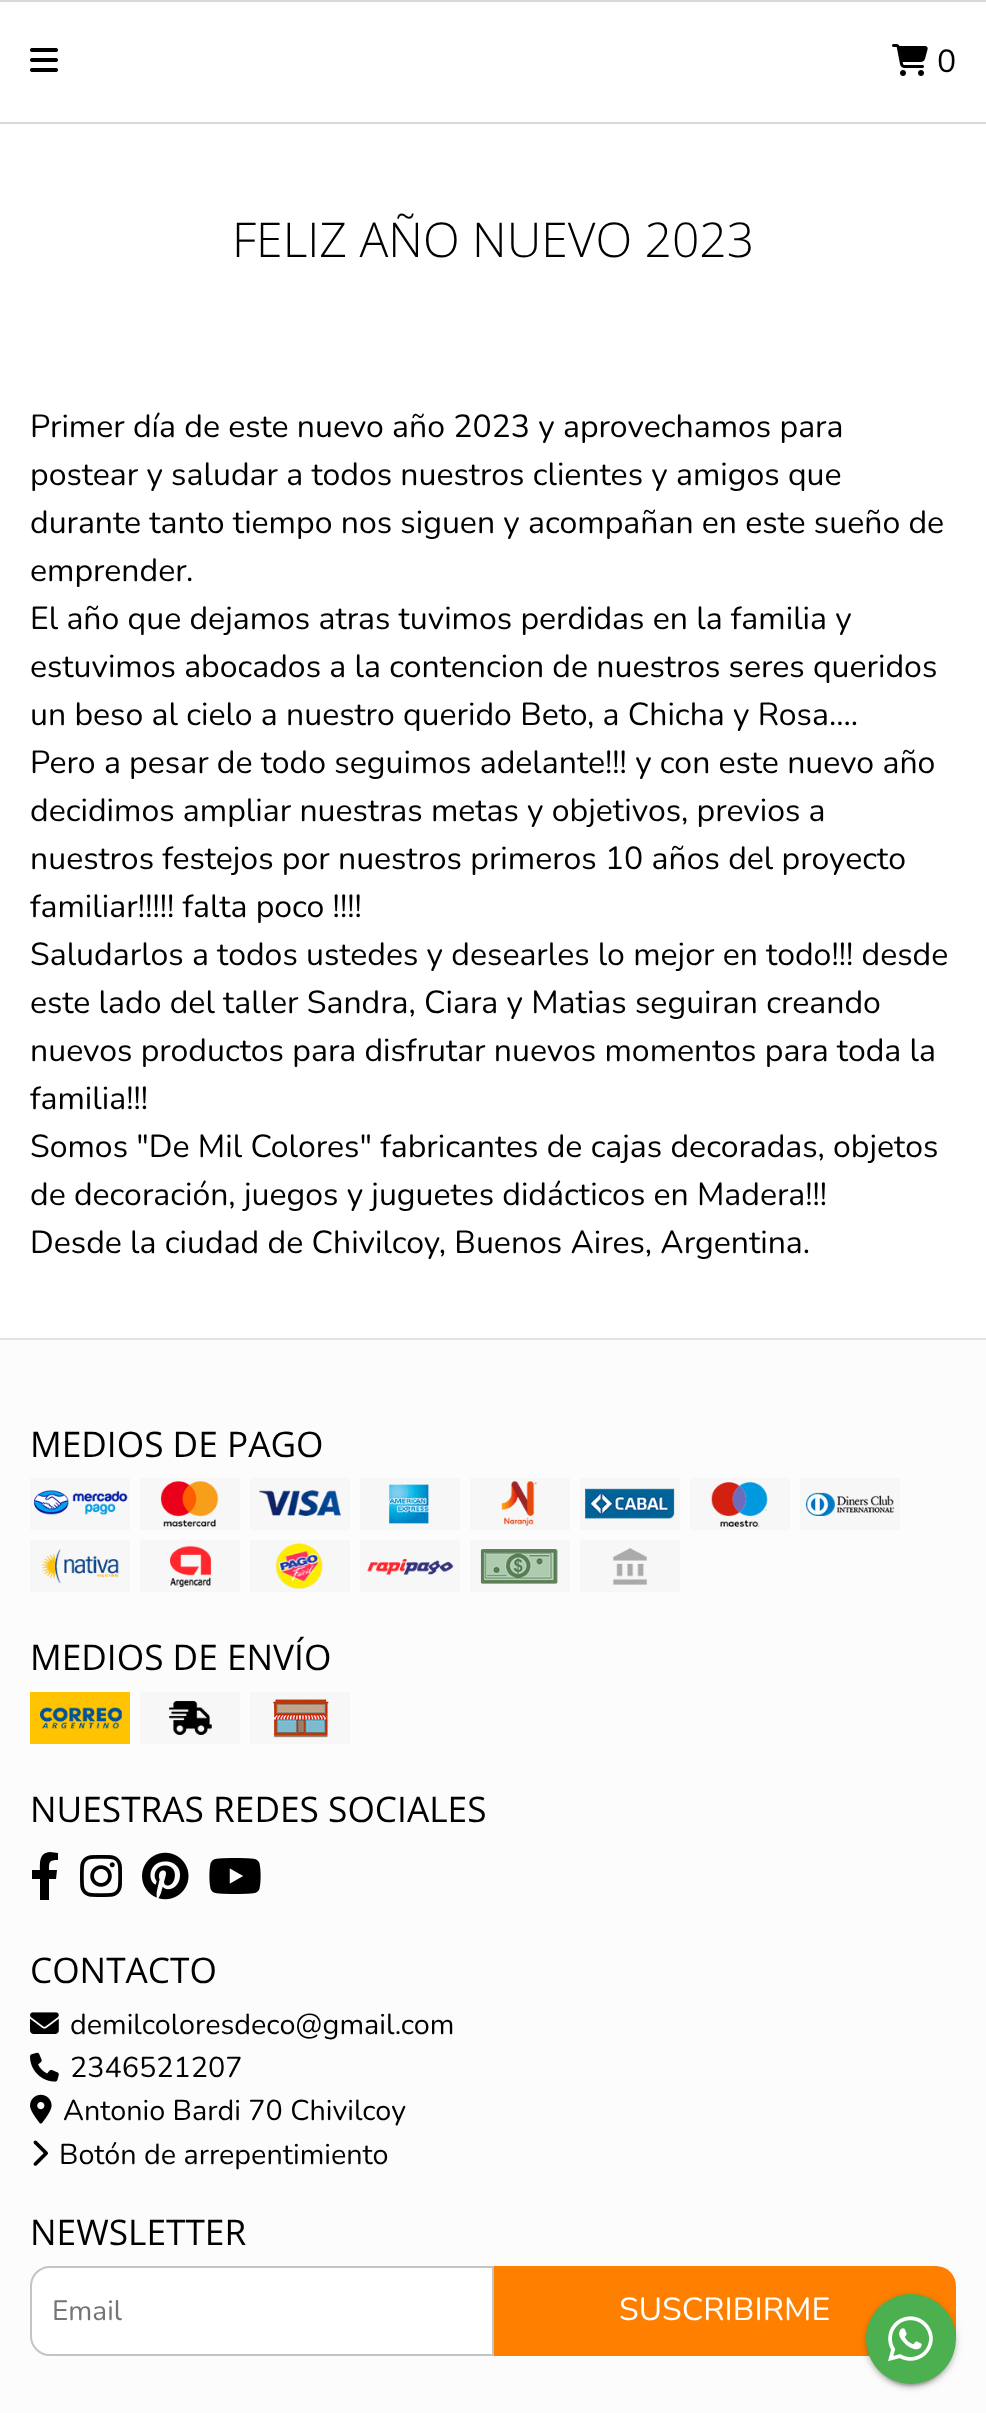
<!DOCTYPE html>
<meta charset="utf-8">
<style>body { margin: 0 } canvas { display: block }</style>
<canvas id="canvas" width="986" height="2413"></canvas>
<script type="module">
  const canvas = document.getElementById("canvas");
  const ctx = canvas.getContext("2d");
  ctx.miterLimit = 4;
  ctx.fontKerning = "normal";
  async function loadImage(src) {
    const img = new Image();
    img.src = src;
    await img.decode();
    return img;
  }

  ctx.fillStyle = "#ffffff";
  ctx.fillRect(0, 0, 986, 2413);
  ctx.fillStyle = "#d9d9d9";
  ctx.fillRect(0, 0, 986, 2);
  ctx.fillRect(0, 122, 986, 2);
  ctx.drawImage(await loadImage("img1.png"), 30, 48, 28, 24);
  ctx.drawImage(await loadImage("img2.png"), 892, 44, 36, 32);
  ctx.font = "32px Nunito";
  ctx.fillStyle = "#000000";
  ctx.fillText("0", 937, 72);
  ctx.font = "300 48px Open Sans";
  ctx.fillText("FELIZ AÑO NUEVO 2023", 232, 257);
  ctx.font = "32px Nunito";
  ctx.fillText("Primer día de este nuevo año 2023 y aprovechamos para", 30, 437);
  ctx.fillText("postear y saludar a todos nuestros clientes y amigos que", 30, 485);
  ctx.fillText("durante tanto tiempo nos siguen y acompañan en este sueño de", 30, 533);
  ctx.fillText("emprender.", 30, 581);
  ctx.fillText("El año que dejamos atras tuvimos perdidas en la familia y", 30, 629);
  ctx.fillText("estuvimos abocados a la contencion de nuestros seres queridos", 30, 677);
  ctx.fillText("un beso al cielo a nuestro querido Beto, a Chicha y Rosa....", 30, 725);
  ctx.fillText("Pero a pesar de todo seguimos adelante!!! y con este nuevo año", 30, 773);
  ctx.fillText("decidimos ampliar nuestras metas y objetivos, previos a", 30, 821);
  ctx.fillText("nuestros festejos por nuestros primeros 10 años del proyecto", 30, 869);
  ctx.fillText("familiar!!!!! falta poco !!!!", 30, 917);
  ctx.fillText("Saludarlos a todos ustedes y desearles lo mejor en todo!!! desde", 30, 965);
  ctx.fillText("este lado del taller Sandra, Ciara y Matias seguiran creando", 30, 1013);
  ctx.fillText("nuevos productos para disfrutar nuevos momentos para toda la", 30, 1061);
  ctx.fillText("familia!!!", 30, 1109);
  ctx.fillText("Somos \"De Mil Colores\" fabricantes de cajas decoradas, objetos", 30, 1157);
  ctx.fillText("de decoración, juegos y juguetes didácticos en Madera!!!", 30, 1205);
  ctx.fillText("Desde la ciudad de Chivilcoy, Buenos Aires, Argentina.", 30, 1253);
  ctx.fillStyle = "#fcfcfc";
  ctx.fillRect(0, 1340, 986, 1073);
  ctx.fillStyle = "#e3e3e3";
  ctx.fillRect(0, 1338, 986, 2);
  ctx.font = "35.25px Open Sans";
  ctx.fillStyle = "#000000";
  ctx.fillText("MEDIOS DE PAGO", 30, 1457);
  ctx.drawImage(await loadImage("img3.png"), 30, 1478, 100, 52);
  ctx.drawImage(await loadImage("img4.png"), 140, 1478, 100, 52);
  ctx.drawImage(await loadImage("img5.png"), 250, 1478, 100, 52);
  ctx.drawImage(await loadImage("img6.png"), 360, 1478, 100, 52);
  ctx.drawImage(await loadImage("img7.png"), 470, 1478, 100, 52);
  ctx.drawImage(await loadImage("img8.png"), 580, 1478, 100, 52);
  ctx.drawImage(await loadImage("img9.png"), 690, 1478, 100, 52);
  ctx.drawImage(await loadImage("img10.png"), 800, 1478, 100, 52);
  ctx.drawImage(await loadImage("img11.png"), 30, 1540, 100, 52);
  ctx.drawImage(await loadImage("img12.png"), 140, 1540, 100, 52);
  ctx.drawImage(await loadImage("img13.png"), 250, 1540, 100, 52);
  ctx.drawImage(await loadImage("img14.png"), 360, 1540, 100, 52);
  ctx.drawImage(await loadImage("img15.png"), 470, 1540, 100, 52);
  ctx.drawImage(await loadImage("img16.png"), 580, 1540, 100, 52);
  ctx.fillText("MEDIOS DE ENVÍO", 30, 1670);
  ctx.drawImage(await loadImage("img17.png"), 30, 1692, 100, 52);
  ctx.drawImage(await loadImage("img18.png"), 140, 1692, 100, 52);
  ctx.drawImage(await loadImage("img19.png"), 250, 1692, 100, 52);
  ctx.fillText("NUESTRAS REDES SOCIALES", 30, 1822);
  ctx.beginPath();
  ctx.moveTo(56, 1879);
  ctx.lineTo(57, 1870);
  ctx.lineTo(49, 1870);
  ctx.bezierCurveTo(49, 1862, 49, 1860, 58, 1860);
  ctx.lineTo(58, 1853);
  ctx.lineTo(50, 1852);
  ctx.bezierCurveTo(39, 1853, 40, 1862, 40, 1870);
  ctx.lineTo(32, 1870);
  ctx.lineTo(32, 1879);
  ctx.lineTo(40, 1879);
  ctx.lineTo(40, 1900);
  ctx.lineTo(49, 1900);
  ctx.lineTo(49, 1879);
  ctx.closePath();
  ctx.fill();
  ctx.drawImage(await loadImage("img20.png"), 80, 1855, 42, 42);
  ctx.drawImage(await loadImage("img21.png"), 142, 1852, 47, 48);
  ctx.drawImage(await loadImage("img22.png"), 209, 1858, 52, 36);
  ctx.fillText("CONTACTO", 30, 1983);
  ctx.drawImage(await loadImage("img23.png"), 30, 2012, 29, 22);
  ctx.font = "28.75px Nunito";
  ctx.fillText("demilcoloresdeco@gmail.com", 70, 2034);
  ctx.drawImage(await loadImage("img24.png"), 30, 2052, 29, 30);
  ctx.fillText("2346521207", 70, 2077);
  ctx.drawImage(await loadImage("img25.png"), 30, 2094, 22, 30);
  ctx.fillText("Antonio Bardi 70 Chivilcoy", 63, 2120);
  ctx.drawImage(await loadImage("img26.png"), 33, 2140, 15, 26);
  ctx.fillText("Botón de arrepentimiento", 59, 2164);
  ctx.font = "35.25px Open Sans";
  ctx.fillText("NEWSLETTER", 30, 2245);
  ctx.fillStyle = "#ffffff";
  ctx.beginPath();
  ctx.roundRect(31, 2267, 462, 88, [19, 0, 0, 19]);
  ctx.fill();
  ctx.strokeStyle = "#c4c4c4";
  ctx.lineWidth = 2;
  ctx.stroke();
  ctx.font = "28px Nunito";
  ctx.fillStyle = "#757575";
  ctx.fillText("Email", 52, 2320);
  ctx.fillStyle = "#ff7f00";
  ctx.beginPath();
  ctx.roundRect(494, 2266, 462, 90, [0, 20, 20, 0]);
  ctx.fill();
  ctx.font = "32px Nunito";
  ctx.fillStyle = "#ffffff";
  ctx.fillText("SUSCRIBIRME", 619, 2320);
  ctx.fillStyle = "rgba(0, 0, 0, 0.2)";
  ctx.filter = "blur(1px)";
  ctx.beginPath();
  ctx.roundRect(870, 2304, 82, 82, 41);
  ctx.fill();
  ctx.filter = "none";
  ctx.fillStyle = "rgba(0, 0, 0, 0.12)";
  ctx.filter = "blur(5px)";
  ctx.beginPath();
  ctx.roundRect(866, 2296, 90, 90, 45);
  ctx.fill();
  ctx.filter = "none";
  ctx.fillStyle = "rgba(0, 0, 0, 0.14)";
  ctx.filter = "blur(2px)";
  ctx.beginPath();
  ctx.roundRect(866, 2298, 90, 90, 45);
  ctx.fill();
  ctx.filter = "none";
  ctx.fillStyle = "#4caf50";
  ctx.beginPath();
  ctx.arc(911, 2339, 45, 0, Math.PI * 2);
  ctx.fill();
  ctx.drawImage(await loadImage("img27.png"), 888, 2316, 45, 46);
</script>
